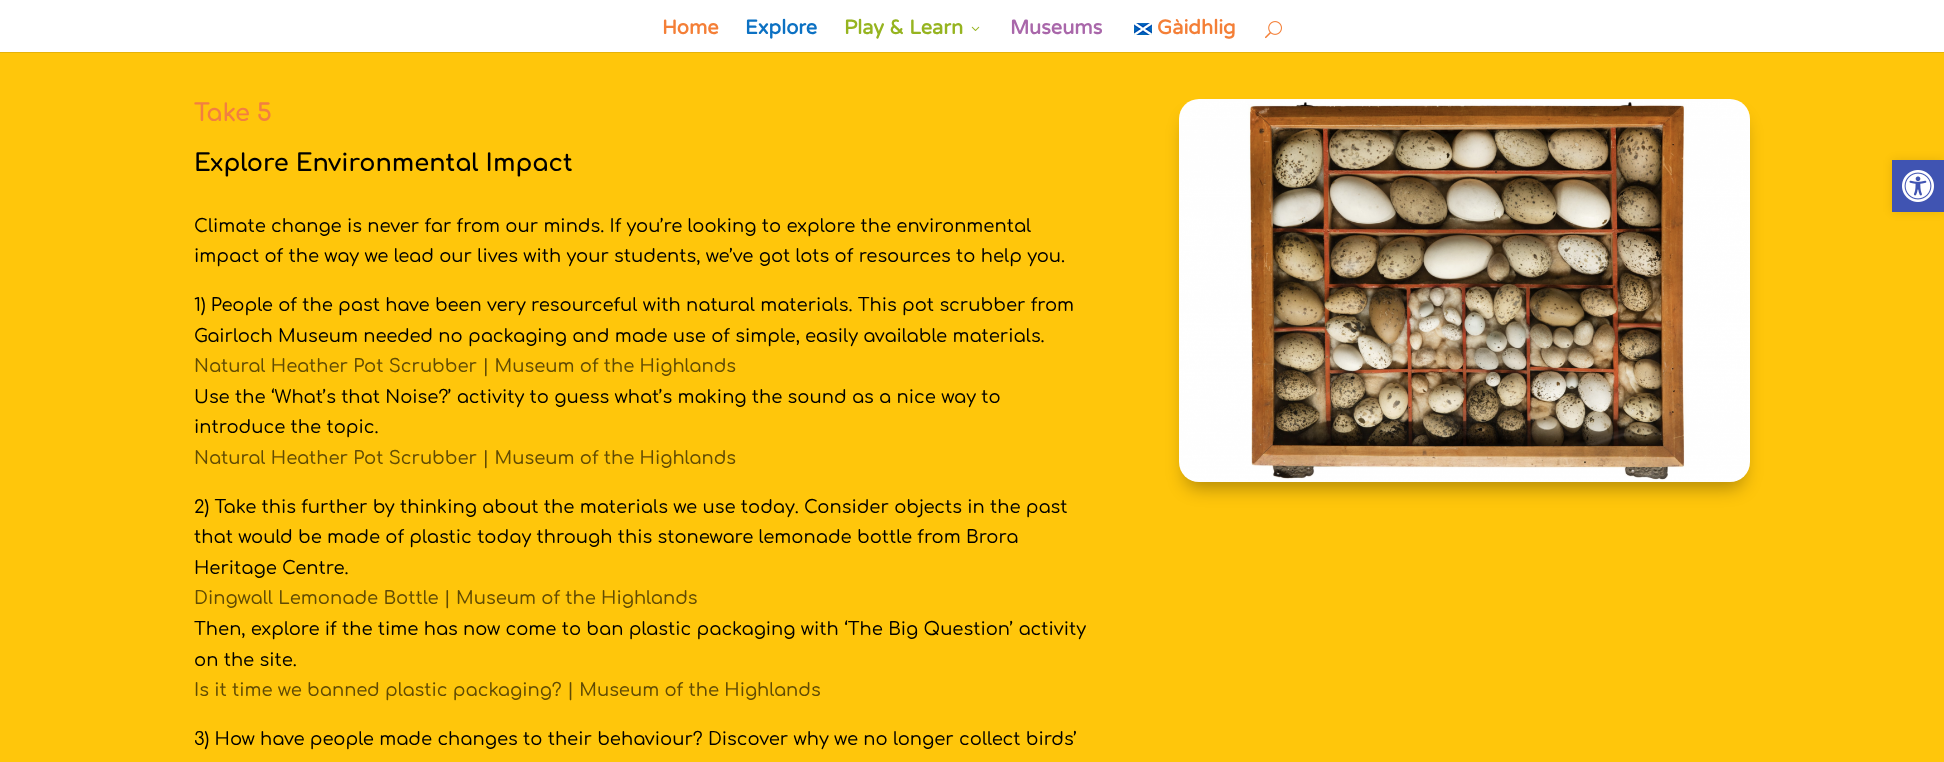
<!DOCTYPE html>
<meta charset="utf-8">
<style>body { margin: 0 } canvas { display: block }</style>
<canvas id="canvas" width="1944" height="762"></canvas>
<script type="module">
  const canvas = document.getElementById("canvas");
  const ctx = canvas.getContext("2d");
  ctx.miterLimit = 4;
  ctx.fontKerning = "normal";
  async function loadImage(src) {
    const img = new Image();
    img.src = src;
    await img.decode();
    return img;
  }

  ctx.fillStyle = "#ffffff";
  ctx.fillRect(0, 0, 1944, 762);
  ctx.fillStyle = "#e6b20a";
  ctx.fillRect(0, 52, 1944, 1);
  ctx.font = "bold 20px Varela Round";
  ctx.fillStyle = "#f47f37";
  ctx.fillText("Home", 662, 34);
  ctx.fillStyle = "#0c71c3";
  ctx.fillText("Explore", 745, 34);
  ctx.fillStyle = "#96b420";
  ctx.fillText("Play & Learn", 844, 34);
  ctx.drawImage(await loadImage("img1.png"), 971, 26, 9, 5);
  ctx.fillStyle = "#a967aa";
  ctx.fillText("Museums", 1010, 34);
  ctx.drawImage(await loadImage("img2.png"), 1134, 23, 18, 12);
  ctx.fillStyle = "#f47f37";
  ctx.fillText("Gàidhlig", 1157, 34);
  ctx.drawImage(await loadImage("img3.png"), 1265, 21, 17, 18);
  ctx.fillStyle = "#ffc60b";
  ctx.fillRect(0, 53, 1944, 709);
  ctx.font = "bold 24px Comfortaa";
  ctx.fillStyle = "#f27f41";
  ctx.fillText("Take 5", 194, 121);
  ctx.fillStyle = "#000000";
  ctx.fillText("Explore Environmental Impact", 194, 171);
  ctx.font = "500 18px Comfortaa";
  ctx.fillText("Climate change is never far from our minds. If you’re looking to explore the environmental", 194, 232);
  ctx.fillText("impact of the way we lead our lives with your students, we’ve got lots of resources to help you.", 194, 262);
  ctx.fillText("1) People of the past have been very resourceful with natural materials. This pot scrubber from", 194, 311);
  ctx.fillText("Gairloch Museum needed no packaging and made use of simple, easily available materials.", 194, 342);
  ctx.fillStyle = "#614b04";
  ctx.fillText("Natural Heather Pot Scrubber | Museum of the Highlands", 194, 372);
  ctx.fillStyle = "#000000";
  ctx.fillText("Use the ‘What’s that Noise?’ activity to guess what’s making the sound as a nice way to", 194, 403);
  ctx.fillText("introduce the topic.", 194, 433);
  ctx.fillStyle = "#614b04";
  ctx.fillText("Natural Heather Pot Scrubber | Museum of the Highlands", 194, 464);
  ctx.fillStyle = "#000000";
  ctx.fillText("2) Take this further by thinking about the materials we use today. Consider objects in the past", 194, 513);
  ctx.fillText("that would be made of plastic today through this stoneware lemonade bottle from Brora", 194, 543);
  ctx.fillText("Heritage Centre.", 194, 574);
  ctx.fillStyle = "#614b04";
  ctx.fillText("Dingwall Lemonade Bottle | Museum of the Highlands", 194, 604);
  ctx.fillStyle = "#000000";
  ctx.fillText("Then, explore if the time has now come to ban plastic packaging with ‘The Big Question’ activity", 194, 635);
  ctx.fillText("on the site.", 194, 666);
  ctx.fillStyle = "#614b04";
  ctx.fillText("Is it time we banned plastic packaging? | Museum of the Highlands", 194, 696);
  ctx.fillStyle = "#000000";
  ctx.fillText("3) How have people made changes to their behaviour? Discover why we no longer collect birds’", 194, 745);
  ctx.fillStyle = "rgba(0, 0, 0, 0.3)";
  ctx.filter = "blur(9px)";
  ctx.beginPath();
  ctx.roundRect(1185, 117, 559, 371, 14);
  ctx.fill();
  ctx.filter = "none";
  ctx.drawImage(await loadImage("img4.png"), 1179, 99, 571, 383);
  ctx.fillStyle = "rgba(0, 0, 0, 0.1)";
  ctx.filter = "blur(5px)";
  ctx.beginPath();
  ctx.rect(1892, 160, 52, 52);
  ctx.fill();
  ctx.filter = "none";
  ctx.fillStyle = "#4054b2";
  ctx.fillRect(1892, 160, 52, 52);
  ctx.drawImage(await loadImage("img5.png"), 1902, 170, 32, 32);
</script>
